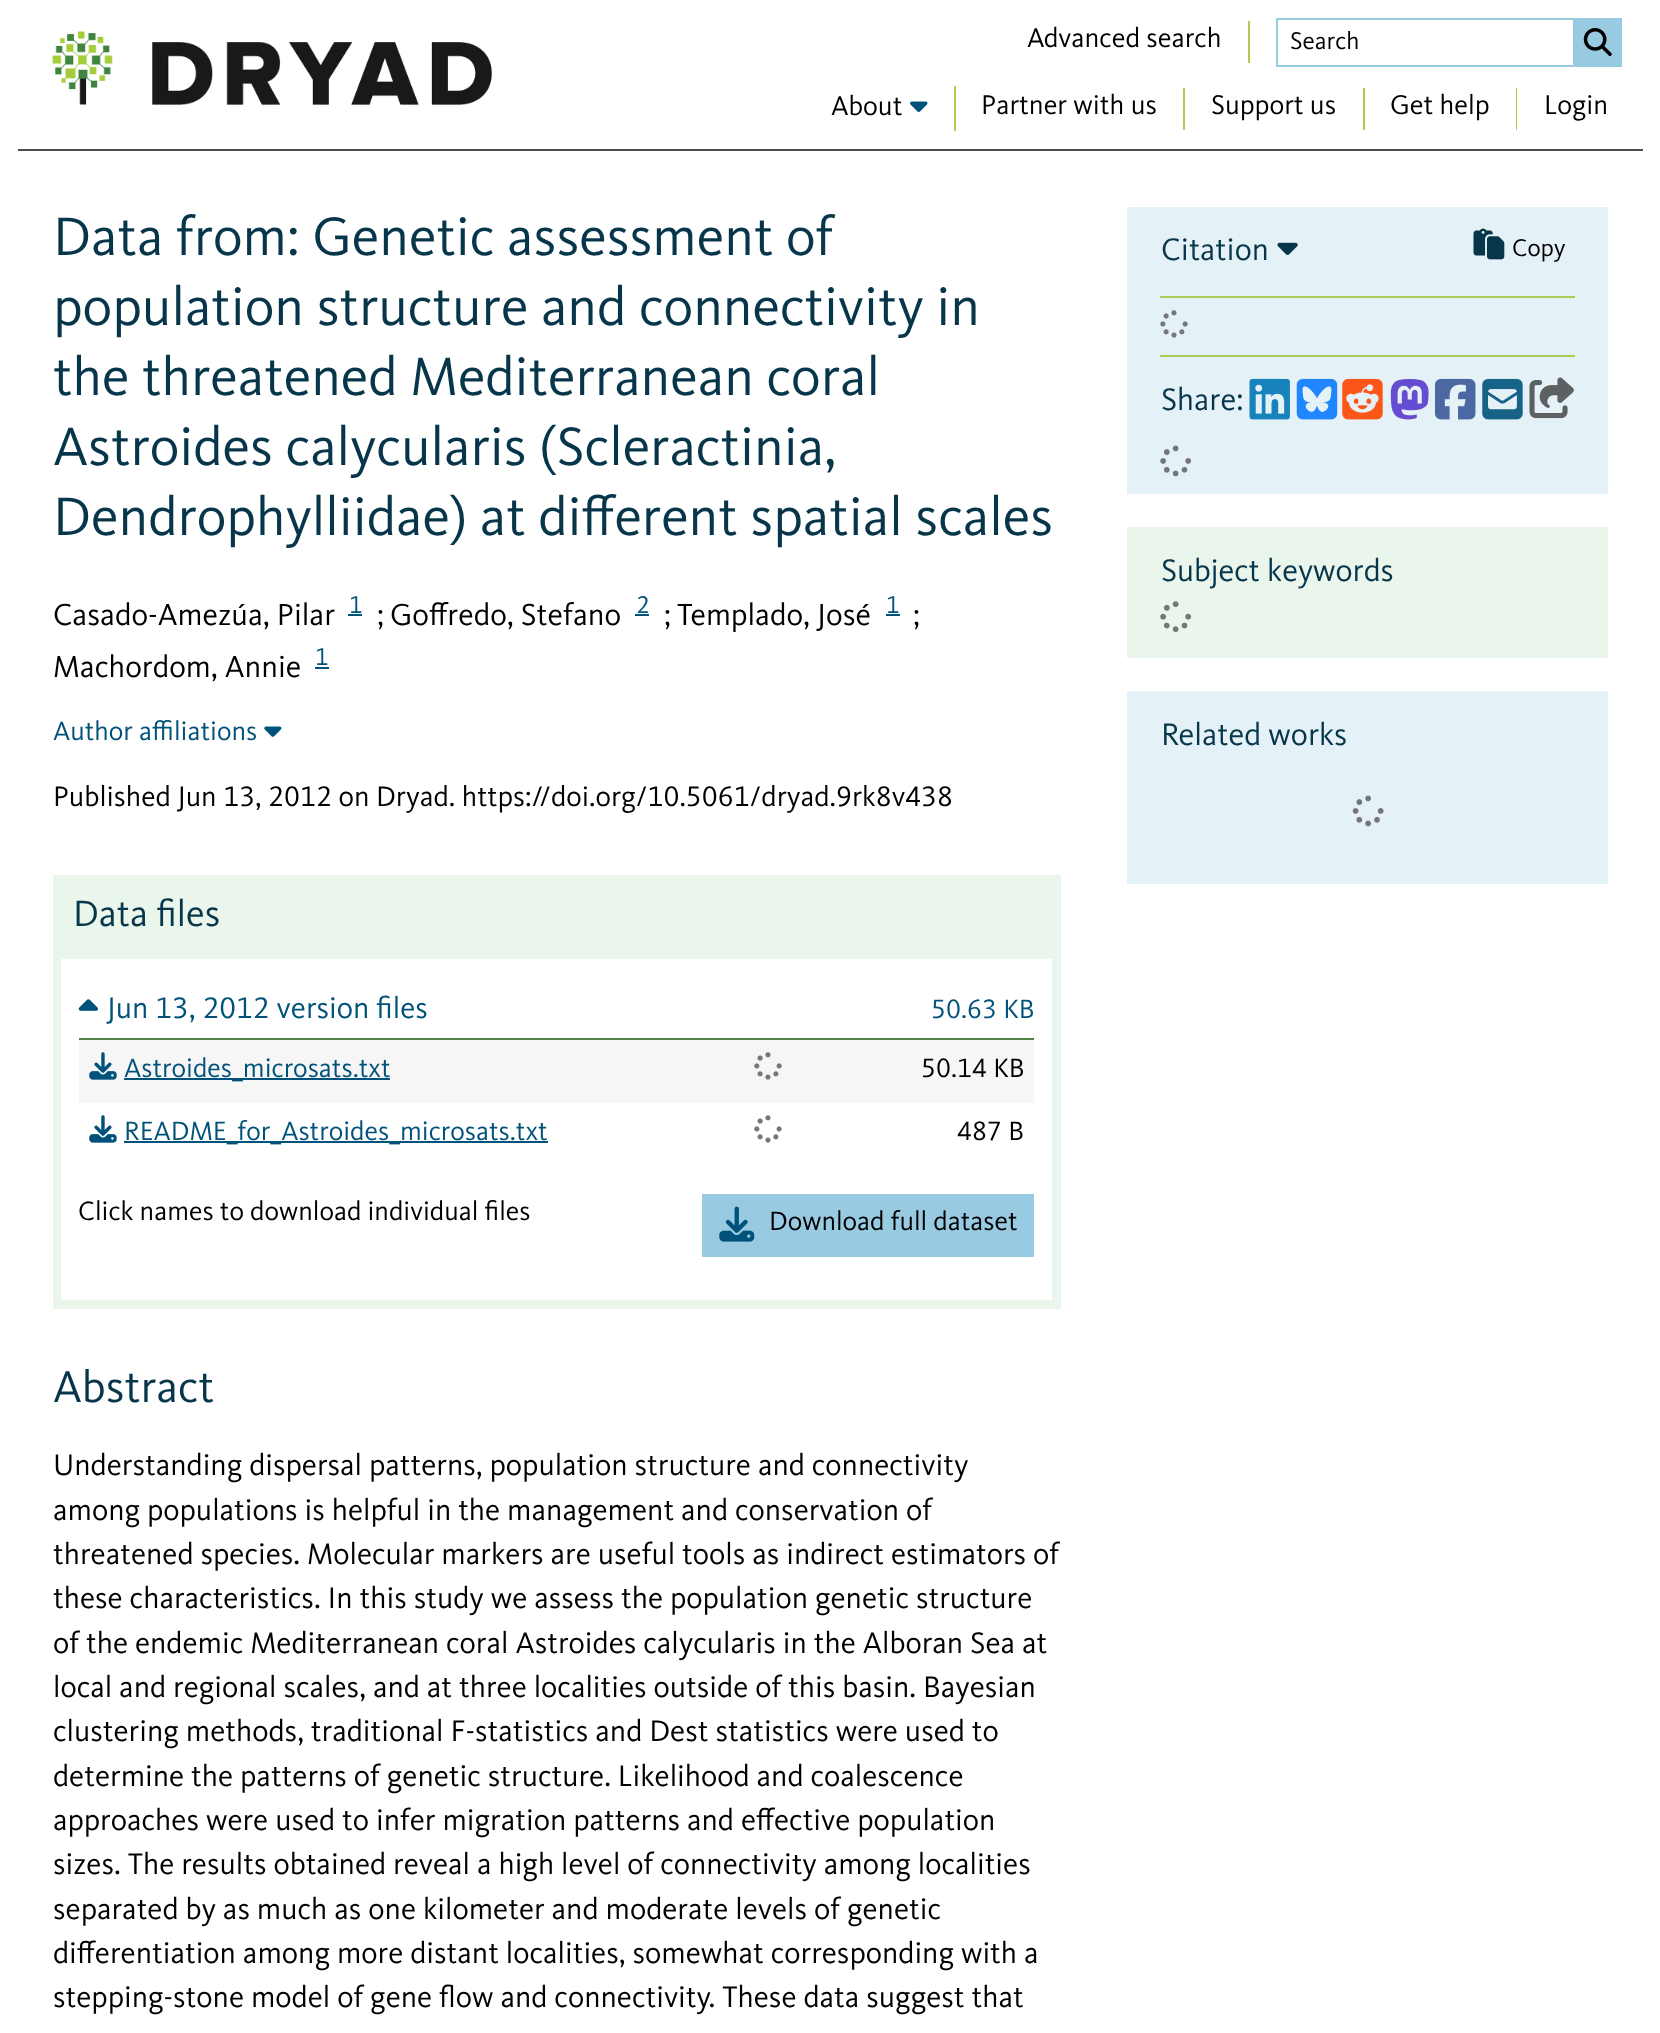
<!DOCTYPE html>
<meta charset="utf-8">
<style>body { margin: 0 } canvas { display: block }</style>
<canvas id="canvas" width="1660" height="2033"></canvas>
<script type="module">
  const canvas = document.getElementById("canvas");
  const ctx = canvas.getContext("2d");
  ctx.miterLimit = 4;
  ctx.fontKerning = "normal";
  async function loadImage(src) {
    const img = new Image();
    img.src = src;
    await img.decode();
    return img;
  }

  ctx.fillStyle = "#ffffff";
  ctx.fillRect(0, 0, 1660, 2033);
  ctx.fillStyle = "#4e5050";
  ctx.fillRect(18, 149, 1625, 2);
  ctx.drawImage(await loadImage("img1.png"), 52, 31, 440, 74);
  ctx.fillStyle = "#accc54";
  ctx.fillRect(1248, 21, 2, 42);
  ctx.font = "28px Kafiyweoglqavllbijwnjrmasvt";
  ctx.fillStyle = "#000000";
  ctx.fillText("Advanced search", 1027, 47);
  ctx.fillStyle = "#98cae2";
  ctx.fillRect(1276, 18, 297, 2);
  ctx.fillRect(1276, 65, 297, 2);
  ctx.fillRect(1276, 18, 2, 49);
  ctx.font = "25px Kafiyweoglqavllbijwnjrmasvt";
  ctx.fillStyle = "#000000";
  ctx.fillText("Search", 1290, 49);
  ctx.fillStyle = "#98cae2";
  ctx.fillRect(1573, 18, 49, 49);
  ctx.drawImage(await loadImage("img2.png"), 1583, 28, 29, 28);
  ctx.fillStyle = "#accc54";
  ctx.fillRect(954, 86, 2, 45);
  ctx.font = "28px Kafiyweoglqavllbijwnjrmasvt";
  ctx.fillStyle = "#000000";
  ctx.fillText("About", 831, 115);
  ctx.drawImage(await loadImage("img3.png"), 910, 101, 18, 11);
  ctx.fillStyle = "#accc54";
  ctx.fillRect(1183, 88, 2, 42);
  ctx.fillStyle = "#000000";
  ctx.fillText("Partner with us", 981, 114);
  ctx.fillStyle = "#accc54";
  ctx.fillRect(1363, 88, 2, 42);
  ctx.fillStyle = "#000000";
  ctx.fillText("Support us", 1211, 114);
  ctx.fillStyle = "#accc54";
  ctx.fillRect(1516, 88, 1, 42);
  ctx.fillStyle = "#000000";
  ctx.fillText("Get help", 1390, 114);
  ctx.fillText("Login", 1544, 114);
  ctx.font = "56px Kafiyweoglqavllbijwnjrmasvt";
  ctx.fillStyle = "#07364b";
  ctx.fillText("Data from: Genetic assessment of", 53, 255);
  ctx.fillText("population structure and connectivity in", 53, 325);
  ctx.fillText("the threatened Mediterranean coral", 53, 395);
  ctx.fillText("Astroides calycularis (Scleractinia,", 53, 465);
  ctx.fillText("Dendrophylliidae) at different spatial scales", 53, 535);
  ctx.font = "31.5px Kafiyweoglqavllbijwnjrmasvt";
  ctx.fillStyle = "#000000";
  ctx.fillText("Casado-Amezúa, Pilar", 53, 625);
  ctx.font = "25px Kafiyweoglqavllbijwnjrmasvt";
  ctx.fillStyle = "#00527a";
  ctx.fillText("1", 349, 613);
  ctx.fillRect(348, 614, 14, 2);
  ctx.font = "30.8px Kafiyweoglqavllbijwnjrmasvt";
  ctx.fillStyle = "#000000";
  ctx.fillText(";", 377, 625);
  ctx.font = "31.5px Kafiyweoglqavllbijwnjrmasvt";
  ctx.fillText("Goffredo, Stefano", 390, 625);
  ctx.font = "25px Kafiyweoglqavllbijwnjrmasvt";
  ctx.fillStyle = "#00527a";
  ctx.fillText("2", 636, 613);
  ctx.fillRect(635, 614, 14, 2);
  ctx.font = "30.8px Kafiyweoglqavllbijwnjrmasvt";
  ctx.fillStyle = "#000000";
  ctx.fillText(";", 664, 625);
  ctx.font = "31.5px Kafiyweoglqavllbijwnjrmasvt";
  ctx.fillText("Templado, José", 677, 625);
  ctx.font = "25px Kafiyweoglqavllbijwnjrmasvt";
  ctx.fillStyle = "#00527a";
  ctx.fillText("1", 886, 613);
  ctx.fillRect(886, 614, 14, 2);
  ctx.font = "30.8px Kafiyweoglqavllbijwnjrmasvt";
  ctx.fillStyle = "#000000";
  ctx.fillText(";", 913, 625);
  ctx.font = "31.5px Kafiyweoglqavllbijwnjrmasvt";
  ctx.fillText("Machordom, Annie", 53, 677);
  ctx.font = "25px Kafiyweoglqavllbijwnjrmasvt";
  ctx.fillStyle = "#00527a";
  ctx.fillText("1", 315, 665);
  ctx.fillRect(315, 667, 14, 2);
  ctx.font = "27.5px Kafiyweoglqavllbijwnjrmasvt";
  ctx.fillText("Author affiliations", 53, 740);
  ctx.drawImage(await loadImage("img4.png"), 264, 726, 18, 11);
  ctx.font = "29.25px Kafiyweoglqavllbijwnjrmasvt";
  ctx.fillStyle = "#000000";
  ctx.fillText("Published Jun 13, 2012 on Dryad. https://doi.org/10.5061/dryad.9rk8v438", 53, 806);
  ctx.fillStyle = "#eaf5eb";
  ctx.fillRect(53, 875, 1008, 84);
  ctx.font = "38px Kafiyweoglqavllbijwnjrmasvt";
  ctx.fillStyle = "#07364b";
  ctx.fillText("Data files", 73, 926);
  ctx.fillStyle = "#eaf5eb";
  ctx.fillRect(1052, 959, 9, 341);
  ctx.fillRect(61, 1300, 1000, 9);
  ctx.fillRect(53, 959, 8, 350);
  ctx.fillStyle = "#528346";
  ctx.fillRect(79, 1038, 955, 2);
  ctx.drawImage(await loadImage("img5.png"), 78, 999, 20, 12);
  ctx.font = "30.8px Kafiyweoglqavllbijwnjrmasvt";
  ctx.fillStyle = "#00527a";
  ctx.fillText("Jun 13, 2012 version files", 107, 1018);
  ctx.font = "27.5px Kafiyweoglqavllbijwnjrmasvt";
  ctx.fillText("50.63 KB", 931, 1018);
  ctx.fillStyle = "#f6f6f6";
  ctx.fillRect(79, 1040, 955, 63);
  ctx.drawImage(await loadImage("img6.png"), 89, 1052, 28, 28);
  ctx.fillStyle = "#00527a";
  ctx.fillRect(124, 1078, 266, 2);
  ctx.fillText("Astroides_microsats.txt", 124, 1077);
  ctx.drawImage(await loadImage("img7.png"), 754, 1052, 28, 28);
  ctx.fillStyle = "#000000";
  ctx.fillText("50.14 KB", 921, 1077);
  ctx.drawImage(await loadImage("img8.png"), 89, 1115, 28, 28);
  ctx.fillStyle = "#00527a";
  ctx.fillRect(124, 1141, 424, 2);
  ctx.fillText("README_for_Astroides_microsats.txt", 124, 1140);
  ctx.drawImage(await loadImage("img9.png"), 754, 1115, 28, 28);
  ctx.fillStyle = "#000000";
  ctx.fillText("487 B", 957, 1140);
  ctx.fillText("Click names to download individual files", 78, 1220);
  ctx.fillStyle = "#98cae2";
  ctx.fillRect(702, 1194, 332, 63);
  ctx.drawImage(await loadImage("img10.png"), 719, 1206, 36, 36);
  ctx.fillStyle = "#000000";
  ctx.fillText("Download full dataset", 769, 1230);
  ctx.font = "46px Kafiyweoglqavllbijwnjrmasvt";
  ctx.fillStyle = "#07364b";
  ctx.fillText("Abstract", 53, 1402);
  ctx.font = "30.8px Kafiyweoglqavllbijwnjrmasvt";
  ctx.fillStyle = "#000000";
  ctx.fillText("Understanding dispersal patterns, population structure and connectivity", 53, 1475);
  ctx.fillText("among populations is helpful in the management and conservation of", 53, 1520);
  ctx.fillText("threatened species. Molecular markers are useful tools as indirect estimators of", 53, 1564);
  ctx.fillText("these characteristics. In this study we assess the population genetic structure", 53, 1608);
  ctx.fillText("of the endemic Mediterranean coral Astroides calycularis in the Alboran Sea at", 53, 1653);
  ctx.fillText("local and regional scales, and at three localities outside of this basin. Bayesian", 53, 1697);
  ctx.fillText("clustering methods, traditional F-statistics and Dest statistics were used to", 53, 1741);
  ctx.fillText("determine the patterns of genetic structure. Likelihood and coalescence", 53, 1786);
  ctx.fillText("approaches were used to infer migration patterns and effective population", 53, 1830);
  ctx.fillText("sizes. The results obtained reveal a high level of connectivity among localities", 53, 1874);
  ctx.fillText("separated by as much as one kilometer and moderate levels of genetic", 53, 1919);
  ctx.fillText("differentiation among more distant localities, somewhat corresponding with a", 53, 1963);
  ctx.fillText("stepping-stone model of gene flow and connectivity. These data suggest that", 53, 2007);
  ctx.fillStyle = "#e4f1f7";
  ctx.fillRect(1127, 207, 481, 287);
  ctx.font = "32.25px Kafiyweoglqavllbijwnjrmasvt";
  ctx.fillStyle = "#07364b";
  ctx.fillText("Citation", 1161, 260);
  ctx.drawImage(await loadImage("img11.png"), 1277, 242, 21, 13);
  ctx.drawImage(await loadImage("img12.png"), 1473, 228, 32, 32);
  ctx.font = "25px Kafiyweoglqavllbijwnjrmasvt";
  ctx.fillStyle = "#000000";
  ctx.fillText("Copy", 1512, 256);
  ctx.fillStyle = "#accc54";
  ctx.fillRect(1160, 296, 415, 2);
  ctx.fillRect(1160, 355, 415, 2);
  ctx.drawImage(await loadImage("img13.png"), 1160, 310, 28, 28);
  ctx.font = "32.25px Kafiyweoglqavllbijwnjrmasvt";
  ctx.fillStyle = "#07364b";
  ctx.fillText("Share:", 1161, 410);
  ctx.drawImage(await loadImage("img14.png"), 1249, 378, 41, 42);
  ctx.drawImage(await loadImage("img15.png"), 1296, 378, 42, 42);
  ctx.drawImage(await loadImage("img16.png"), 1342, 378, 41, 42);
  ctx.drawImage(await loadImage("img17.png"), 1390, 379, 39, 41);
  ctx.drawImage(await loadImage("img18.png"), 1435, 378, 41, 42);
  ctx.drawImage(await loadImage("img19.png"), 1482, 378, 41, 42);
  ctx.drawImage(await loadImage("img20.png"), 1529, 377, 45, 42);
  ctx.drawImage(await loadImage("img21.png"), 1160, 445, 31, 32);
  ctx.fillStyle = "#eaf5eb";
  ctx.fillRect(1127, 527, 481, 131);
  ctx.fillStyle = "#07364b";
  ctx.fillText("Subject keywords", 1161, 581);
  ctx.drawImage(await loadImage("img22.png"), 1160, 601, 31, 32);
  ctx.fillStyle = "#e4f1f7";
  ctx.fillRect(1127, 691, 481, 193);
  ctx.fillStyle = "#07364b";
  ctx.fillText("Related works", 1161, 745);
  ctx.drawImage(await loadImage("img23.png"), 1352, 795, 32, 32);
</script>
